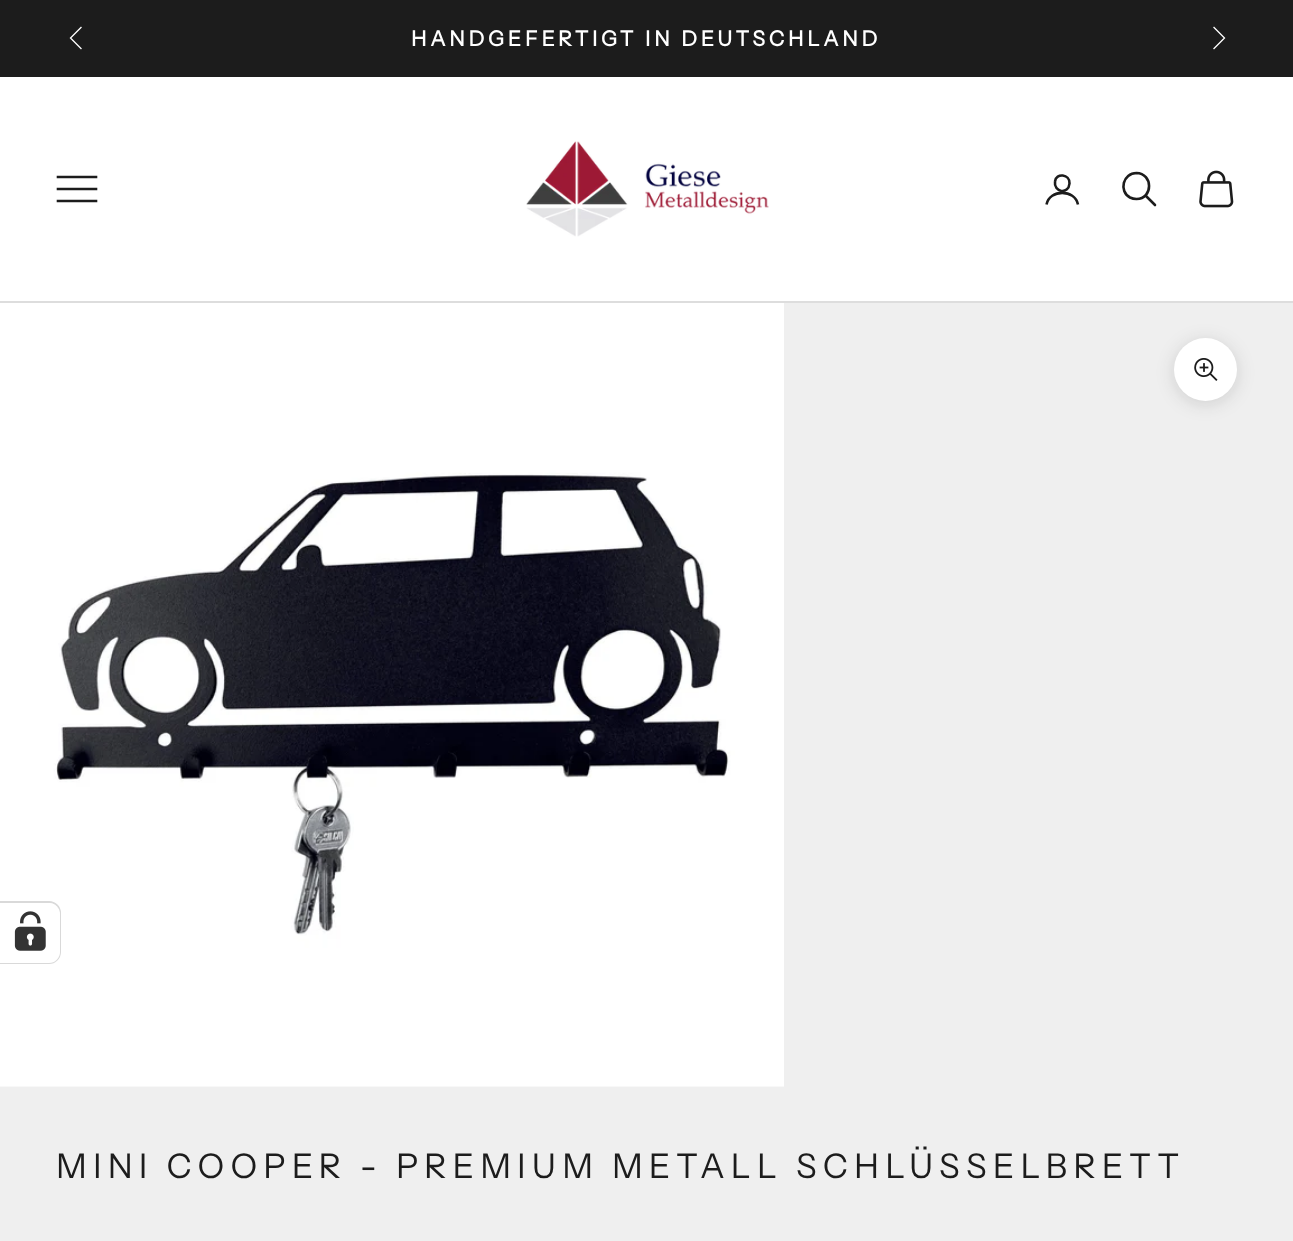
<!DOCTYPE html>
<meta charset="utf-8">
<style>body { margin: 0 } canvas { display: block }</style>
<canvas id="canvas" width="1293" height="1241"></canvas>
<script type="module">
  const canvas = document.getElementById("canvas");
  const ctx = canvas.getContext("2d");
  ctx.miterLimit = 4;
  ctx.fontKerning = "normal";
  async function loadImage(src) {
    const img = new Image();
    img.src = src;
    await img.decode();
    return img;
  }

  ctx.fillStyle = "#efefef";
  ctx.fillRect(0, 0, 1293, 1241);
  ctx.fillStyle = "#1c1c1c";
  ctx.fillRect(0, 0, 1293, 77);
  ctx.beginPath();
  ctx.moveTo(81, 27.5);
  ctx.lineTo(70.5, 38);
  ctx.lineTo(81, 48.5);
  ctx.strokeStyle = "#ffffff";
  ctx.lineWidth = 1.3;
  ctx.lineCap = "square";
  ctx.stroke();
  ctx.letterSpacing = "3.75px";
  ctx.font = "bold 21px Instrument Sans";
  ctx.fillStyle = "#ffffff";
  ctx.fillText("HANDGEFERTIGT IN DEUTSCHLAND", 411, 46);
  ctx.beginPath();
  ctx.moveTo(1214, 48.5);
  ctx.lineTo(1224.5, 38);
  ctx.lineTo(1214, 27.5);
  ctx.stroke();
  ctx.fillRect(0, 77, 1293, 224);
  ctx.fillStyle = "#dddddd";
  ctx.fillRect(0, 301, 1293, 2);
  ctx.beginPath();
  ctx.moveTo(58, 201);
  ctx.lineTo(96, 201);
  ctx.moveTo(58, 189);
  ctx.lineTo(96, 189);
  ctx.moveTo(58, 177);
  ctx.lineTo(96, 177);
  ctx.strokeStyle = "#1c1c1c";
  ctx.lineWidth = 2.6;
  ctx.stroke();
  ctx.drawImage(await loadImage("img1.png"), 526, 141, 243, 96);
  ctx.beginPath();
  ctx.moveTo(1069.5, 183.5);
  ctx.bezierCurveTo(1068.5, 195, 1053.5, 192.5, 1055, 181.5);
  ctx.bezierCurveTo(1056, 172.5, 1070, 174, 1069.5, 183.5);
  ctx.closePath();
  ctx.lineCap = "round";
  ctx.lineJoin = "round";
  ctx.stroke();
  ctx.beginPath();
  ctx.moveTo(1046.5, 204.5);
  ctx.bezierCurveTo(1049.5, 189, 1075, 189, 1078, 204.5);
  ctx.lineCap = "butt";
  ctx.lineJoin = "miter";
  ctx.stroke();
  ctx.beginPath();
  ctx.moveTo(1136.5, 173);
  ctx.bezierCurveTo(1123, 173, 1118.5, 191, 1130, 197.5);
  ctx.bezierCurveTo(1132, 198.5, 1134, 199, 1136.5, 199);
  ctx.bezierCurveTo(1153.5, 198.5, 1153, 173.5, 1136.5, 173);
  ctx.closePath();
  ctx.stroke();
  ctx.beginPath();
  ctx.moveTo(1146, 196);
  ctx.lineTo(1155, 205);
  ctx.lineCap = "round";
  ctx.stroke();
  ctx.drawImage(await loadImage("img2.png"), 1199, 170, 35, 38);
  ctx.drawImage(await loadImage("img4.png"), 0, 303, 784, 784);
  ctx.beginPath();
  ctx.moveTo(-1, 902);
  ctx.lineTo(49, 902);
  ctx.bezierCurveTo(55, 902, 60, 907, 60, 913);
  ctx.lineTo(60, 952);
  ctx.bezierCurveTo(60, 958, 55, 963, 49, 963);
  ctx.lineTo(-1, 963);
  ctx.closePath();
  ctx.strokeStyle = "#d9d9d9";
  ctx.lineWidth = 2;
  ctx.stroke();
  ctx.fillStyle = "#ffffff";
  ctx.beginPath();
  ctx.roundRect(0, 903, 60, 60, [0, 11, 11, 0]);
  ctx.fill();
  ctx.drawImage(await loadImage("img3.png"), 14, 911, 32, 40);
  ctx.fillStyle = "rgba(28, 28, 28, 0.15)";
  ctx.filter = "blur(9px)";
  ctx.beginPath();
  ctx.roundRect(1174, 341, 63, 63, 31.5);
  ctx.fill();
  ctx.filter = "none";
  ctx.fillStyle = "#ffffff";
  ctx.beginPath();
  ctx.arc(1205.5, 369.5, 31.5, 0, Math.PI * 2);
  ctx.fill();
  ctx.drawImage(await loadImage("img5.png"), 1194, 358, 24, 23);
  ctx.letterSpacing = "6.1px";
  ctx.font = "34px Instrument Sans";
  ctx.fillStyle = "#1c1c1c";
  ctx.fillText("MINI COOPER - PREMIUM METALL SCHLÜSSELBRETT", 56, 1178);
</script>
